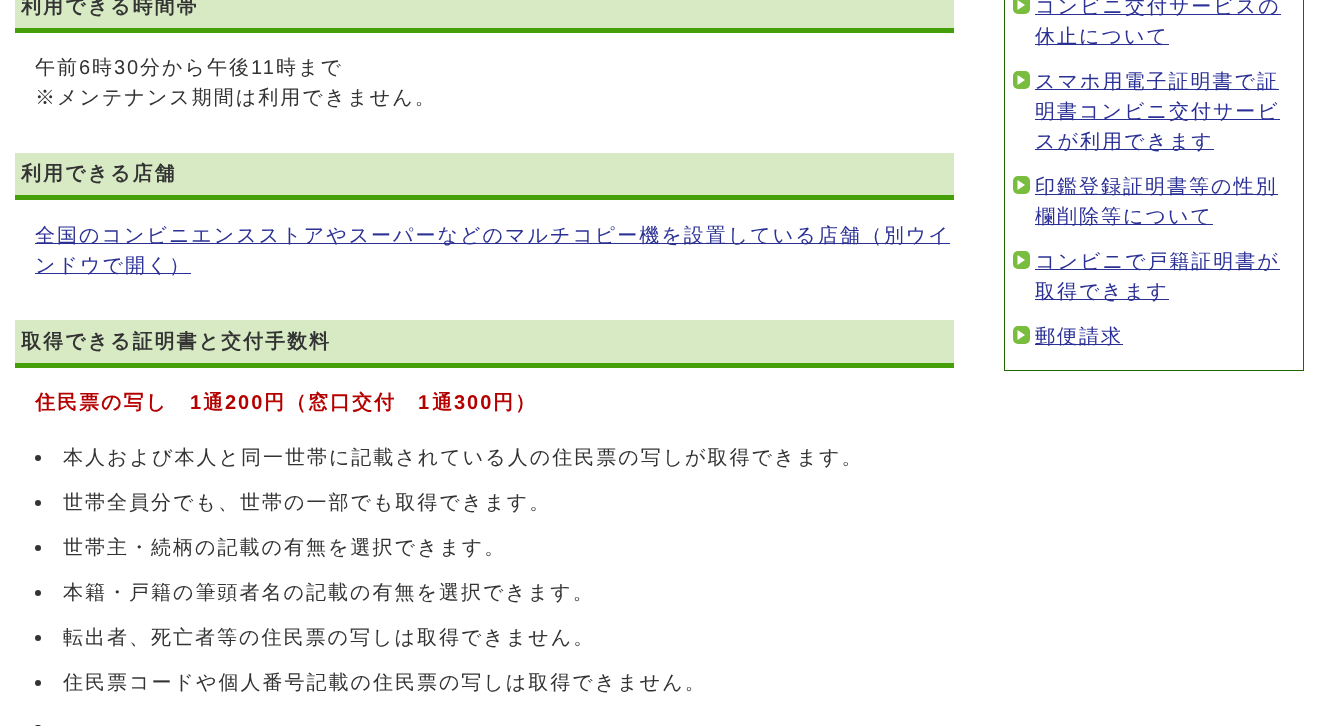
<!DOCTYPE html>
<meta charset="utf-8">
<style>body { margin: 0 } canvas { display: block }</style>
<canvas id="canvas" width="1318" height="726"></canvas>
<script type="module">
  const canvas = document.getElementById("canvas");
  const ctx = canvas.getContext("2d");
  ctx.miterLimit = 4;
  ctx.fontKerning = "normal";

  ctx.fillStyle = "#ffffff";
  ctx.fillRect(0, 0, 1318, 726);
  ctx.fillStyle = "#d7eac4";
  ctx.fillRect(15, 0, 939, 28);
  ctx.fillStyle = "#449f09";
  ctx.fillRect(15, 28, 939, 5);
  ctx.letterSpacing = "2px";
  ctx.font = "bold 20px WenQuanYi Zen Hei";
  ctx.fillStyle = "#333333";
  ctx.fillText("利用できる時間帯", 21, 13);
  ctx.font = "500 20px WenQuanYi Zen Hei";
  ctx.fillText("午前", 35, 74);
  ctx.font = "20px Liberation Sans";
  ctx.fillText("6", 79, 74);
  ctx.font = "500 20px WenQuanYi Zen Hei";
  ctx.fillText("時", 92, 74);
  ctx.font = "20px Liberation Sans";
  ctx.fillText("30", 114, 74);
  ctx.font = "500 20px WenQuanYi Zen Hei";
  ctx.fillText("分から午後", 140, 74);
  ctx.font = "20px Liberation Sans";
  ctx.fillText("11", 251, 74);
  ctx.font = "500 20px WenQuanYi Zen Hei";
  ctx.fillText("時まで", 276, 74);
  ctx.fillText("※メンテナンス期間は利用できません。", 35, 104);
  ctx.fillStyle = "#d7eac4";
  ctx.fillRect(15, 153, 939, 42);
  ctx.fillStyle = "#449f09";
  ctx.fillRect(15, 195, 939, 5);
  ctx.font = "bold 20px WenQuanYi Zen Hei";
  ctx.fillStyle = "#333333";
  ctx.fillText("利用できる店舗", 21, 180);
  ctx.fillStyle = "#2b3095";
  ctx.fillRect(35, 243, 915, 1);
  ctx.font = "500 20px WenQuanYi Zen Hei";
  ctx.fillText("全国のコンビニエンスストアやスーパーなどのマルチコピー機を設置している店舗（別ウイ", 35, 242);
  ctx.fillRect(35, 273, 156, 1);
  ctx.fillText("ンドウで開く）", 35, 272);
  ctx.fillStyle = "#d7eac4";
  ctx.fillRect(15, 320, 939, 43);
  ctx.fillStyle = "#449f09";
  ctx.fillRect(15, 363, 939, 5);
  ctx.font = "bold 20px WenQuanYi Zen Hei";
  ctx.fillStyle = "#333333";
  ctx.fillText("取得できる証明書と交付手数料", 21, 348);
  ctx.fillStyle = "#b50000";
  ctx.fillText("住民票の写し", 35, 409);
  ctx.font = "bold 20px Liberation Sans";
  ctx.fillText("1", 190, 409);
  ctx.font = "bold 20px WenQuanYi Zen Hei";
  ctx.fillText("通", 203, 409);
  ctx.font = "bold 20px Liberation Sans";
  ctx.fillText("200", 225, 409);
  ctx.font = "bold 20px WenQuanYi Zen Hei";
  ctx.fillText("円（窓口交付", 264, 409);
  ctx.font = "bold 20px Liberation Sans";
  ctx.fillText("1", 418, 409);
  ctx.font = "bold 20px WenQuanYi Zen Hei";
  ctx.fillText("通", 432, 409);
  ctx.font = "bold 20px Liberation Sans";
  ctx.fillText("300", 454, 409);
  ctx.font = "bold 20px WenQuanYi Zen Hei";
  ctx.fillText("円）", 493, 409);
  ctx.fillStyle = "#333333";
  ctx.beginPath();
  ctx.arc(38, 458, 3, 0, Math.PI * 2);
  ctx.fill();
  ctx.font = "500 20px WenQuanYi Zen Hei";
  ctx.fillText("本人および本人と同一世帯に記載されている人の住民票の写しが取得できます。", 63, 464);
  ctx.beginPath();
  ctx.arc(38, 503, 3, 0, Math.PI * 2);
  ctx.fill();
  ctx.fillText("世帯全員分でも、世帯の一部でも取得できます。", 63, 509);
  ctx.beginPath();
  ctx.arc(38, 548, 3, 0, Math.PI * 2);
  ctx.fill();
  ctx.fillText("世帯主・続柄の記載の有無を選択できます。", 63, 554);
  ctx.beginPath();
  ctx.arc(38, 593, 3, 0, Math.PI * 2);
  ctx.fill();
  ctx.fillText("本籍・戸籍の筆頭者名の記載の有無を選択できます。", 63, 599);
  ctx.beginPath();
  ctx.arc(38, 638, 3, 0, Math.PI * 2);
  ctx.fill();
  ctx.fillText("転出者、死亡者等の住民票の写しは取得できません。", 63, 644);
  ctx.beginPath();
  ctx.arc(38, 683, 3, 0, Math.PI * 2);
  ctx.fill();
  ctx.fillText("住民票コードや個人番号記載の住民票の写しは取得できません。", 63, 689);
  ctx.beginPath();
  ctx.roundRect(35, 725, 6, 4, 3);
  ctx.fill();
  ctx.strokeStyle = "#216601";
  ctx.strokeRect(1004.5, -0.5, 299, 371);
  ctx.fillStyle = "#79bd3e";
  ctx.beginPath();
  ctx.roundRect(1013, -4, 17, 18, 5);
  ctx.fill();
  ctx.fillStyle = "#ffffff";
  ctx.beginPath();
  ctx.moveTo(1017.5, 10);
  ctx.lineTo(1017.5, 0);
  ctx.lineTo(1025, 5);
  ctx.closePath();
  ctx.fill();
  ctx.fillStyle = "#2b3095";
  ctx.fillRect(1035, 14, 246, 1);
  ctx.fillText("コンビニ交付サービスの", 1035, 13);
  ctx.fillRect(1035, 44, 134, 1);
  ctx.fillText("休止について", 1035, 43);
  ctx.fillStyle = "#79bd3e";
  ctx.beginPath();
  ctx.roundRect(1013, 71, 17, 18, 5);
  ctx.fill();
  ctx.fillStyle = "#2b3095";
  ctx.fillRect(1035, 89, 244, 1);
  ctx.fillText("スマホ用電子証明書で証", 1035, 88);
  ctx.fillStyle = "#ffffff";
  ctx.beginPath();
  ctx.moveTo(1017.5, 85);
  ctx.lineTo(1017.5, 75);
  ctx.lineTo(1025, 80);
  ctx.closePath();
  ctx.fill();
  ctx.fillStyle = "#2b3095";
  ctx.fillRect(1035, 119, 245, 1);
  ctx.fillText("明書コンビニ交付サービ", 1035, 118);
  ctx.fillRect(1035, 149, 179, 1);
  ctx.fillText("スが利用できます", 1035, 148);
  ctx.fillStyle = "#79bd3e";
  ctx.beginPath();
  ctx.roundRect(1013, 176, 17, 18, 5);
  ctx.fill();
  ctx.fillStyle = "#2b3095";
  ctx.fillRect(1035, 194, 243, 1);
  ctx.fillText("印鑑登録証明書等の性別", 1035, 193);
  ctx.fillStyle = "#ffffff";
  ctx.beginPath();
  ctx.moveTo(1017.5, 190);
  ctx.lineTo(1017.5, 180);
  ctx.lineTo(1025, 185);
  ctx.closePath();
  ctx.fill();
  ctx.fillStyle = "#2b3095";
  ctx.fillRect(1035, 224, 178, 1);
  ctx.fillText("欄削除等について", 1035, 223);
  ctx.fillStyle = "#79bd3e";
  ctx.beginPath();
  ctx.roundRect(1013, 251, 17, 18, 5);
  ctx.fill();
  ctx.fillStyle = "#2b3095";
  ctx.fillRect(1035, 269, 245, 1);
  ctx.fillText("コンビニで戸籍証明書が", 1035, 268);
  ctx.fillStyle = "#ffffff";
  ctx.beginPath();
  ctx.moveTo(1017.5, 265);
  ctx.lineTo(1017.5, 255);
  ctx.lineTo(1025, 260);
  ctx.closePath();
  ctx.fill();
  ctx.fillStyle = "#2b3095";
  ctx.fillRect(1035, 299, 134, 1);
  ctx.fillText("取得できます", 1035, 298);
  ctx.fillStyle = "#79bd3e";
  ctx.beginPath();
  ctx.roundRect(1013, 326, 17, 18, 5);
  ctx.fill();
  ctx.fillStyle = "#2b3095";
  ctx.fillRect(1035, 344, 88, 1);
  ctx.fillText("郵便請求", 1035, 343);
  ctx.fillStyle = "#ffffff";
  ctx.beginPath();
  ctx.moveTo(1017.5, 340);
  ctx.lineTo(1017.5, 330);
  ctx.lineTo(1025, 335);
  ctx.closePath();
  ctx.fill();
</script>
